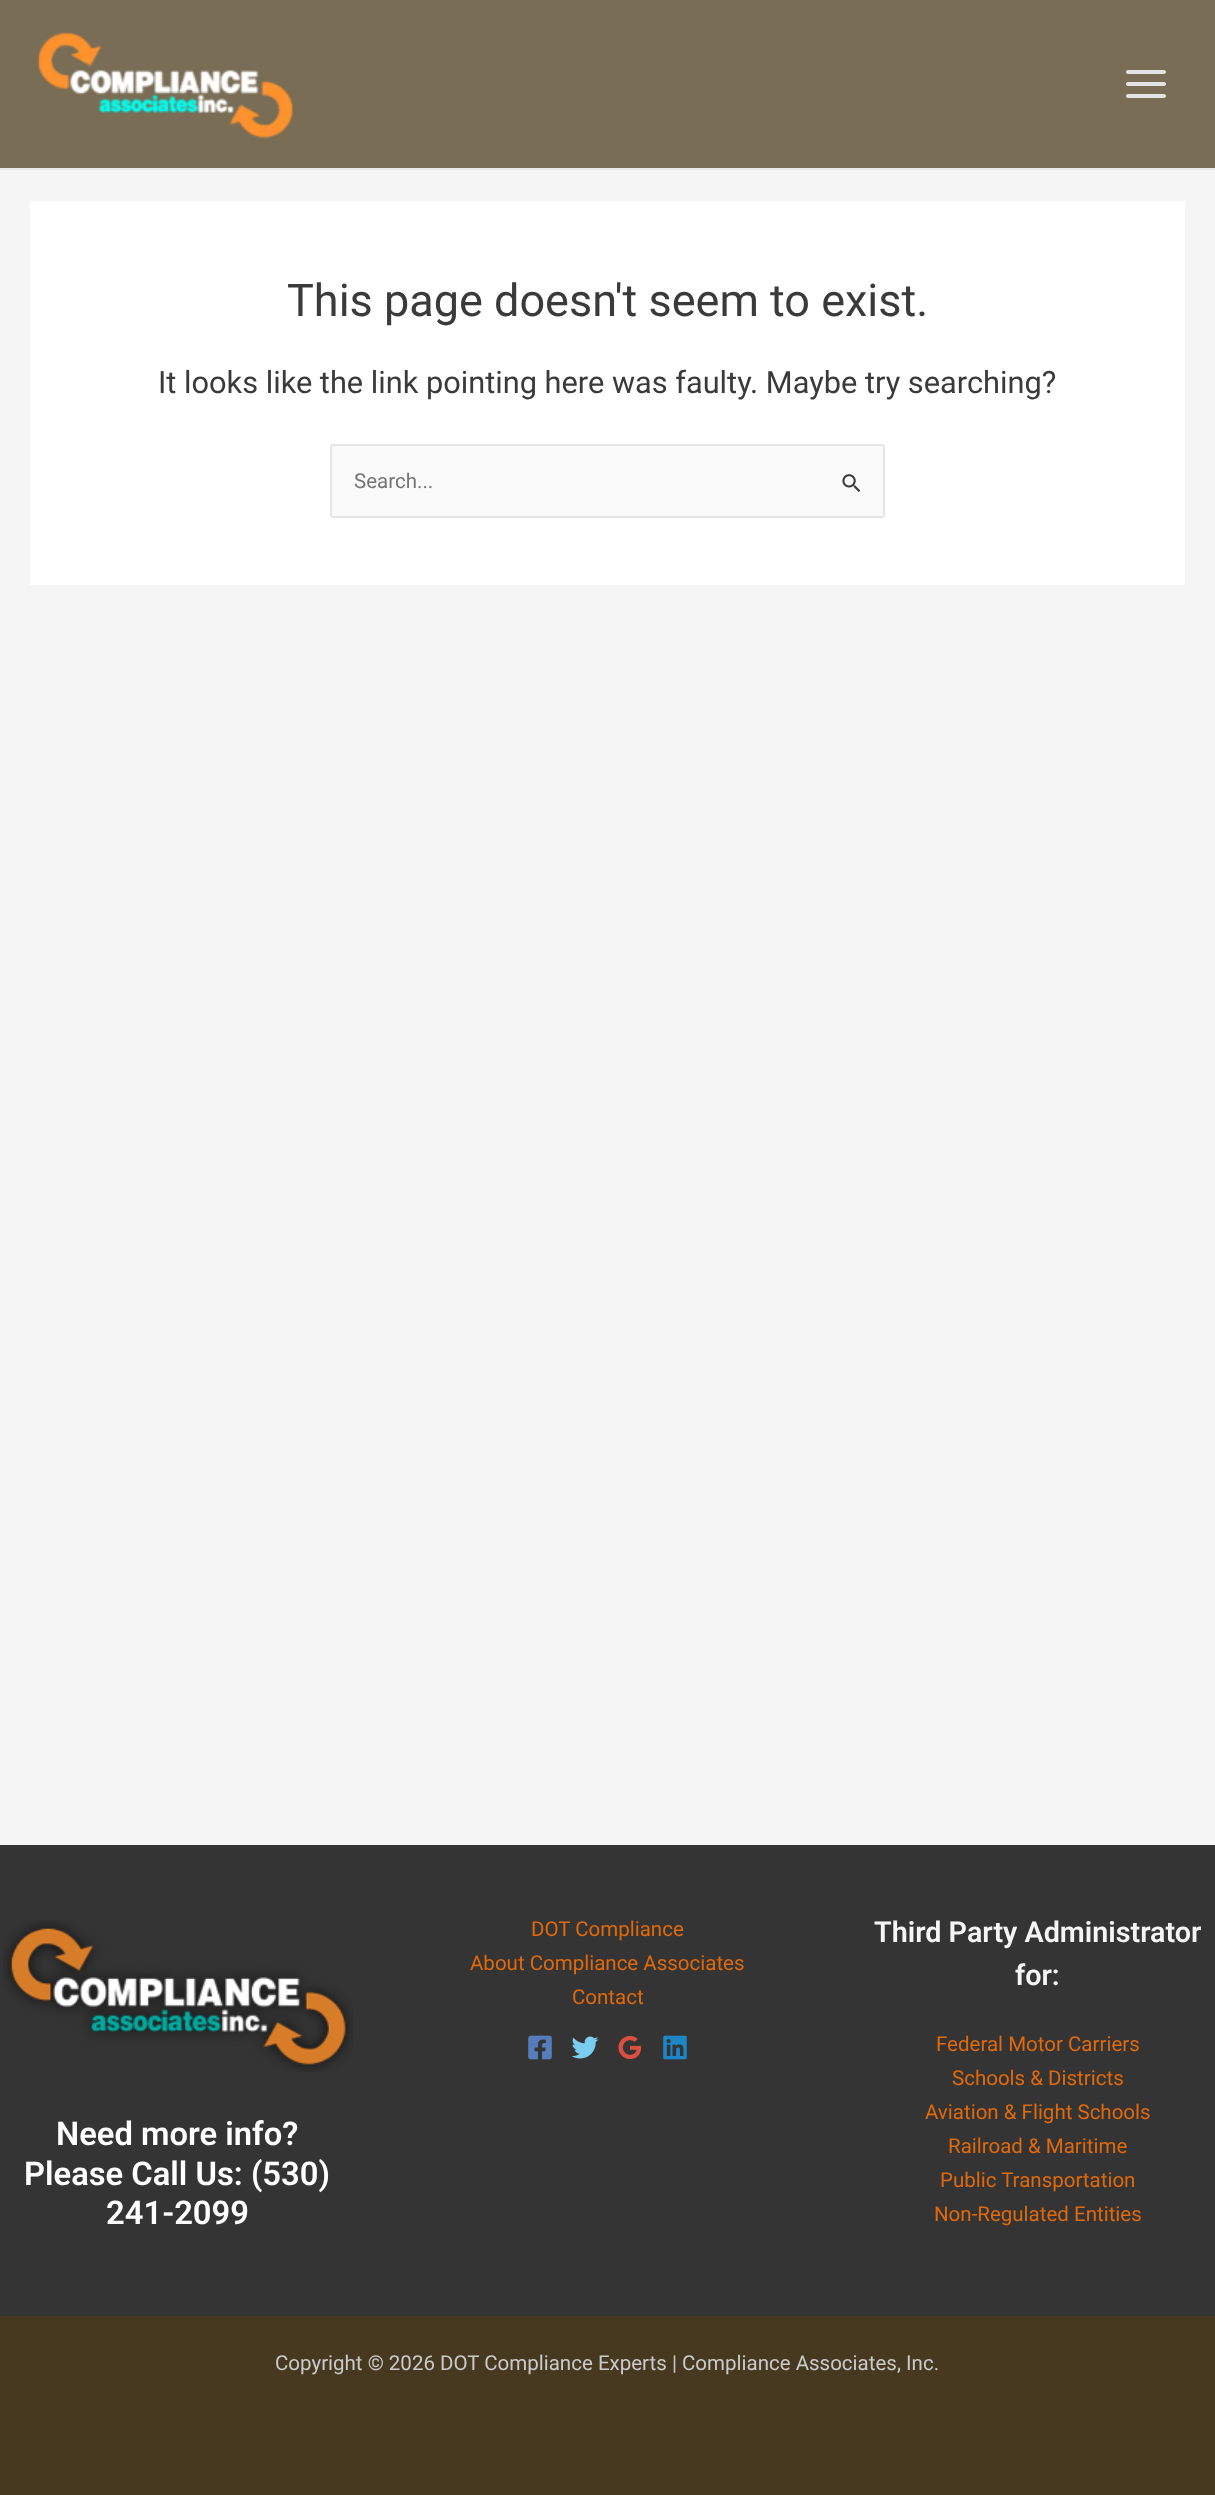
<!DOCTYPE html>
<meta charset="utf-8">
<style>body { margin: 0 } canvas { display: block }</style>
<canvas id="canvas" width="1215" height="2495"></canvas>
<script type="module">
  const canvas = document.getElementById("canvas");
  const ctx = canvas.getContext("2d");
  ctx.miterLimit = 4;
  ctx.fontKerning = "normal";
  async function loadImage(src) {
    const img = new Image();
    img.src = src;
    await img.decode();
    return img;
  }

  ctx.fillStyle = "#f5f5f5";
  ctx.fillRect(0, 0, 1215, 2495);
  ctx.fillStyle = "#796d55";
  ctx.fillRect(0, 0, 1215, 168);
  ctx.fillStyle = "#eaeaea";
  ctx.fillRect(0, 168, 1215, 2);
  ctx.drawImage(await loadImage("img1.png"), 37, 32, 256, 107);
  ctx.drawImage(await loadImage("img2.png"), 1126, 70, 40, 28);
  ctx.fillStyle = "#ffffff";
  ctx.fillRect(30, 201, 1155, 384);
  ctx.font = "45px Roboto";
  ctx.fillStyle = "#3a3a3a";
  ctx.fillText("This page doesn't seem to exist.", 287, 316);
  ctx.font = "30.75px Roboto";
  ctx.fillText("It looks like the link pointing here was faulty. Maybe try searching?", 158, 393);
  ctx.fillStyle = "#fafafa";
  ctx.beginPath();
  ctx.roundRect(331, 445, 553, 72, 2);
  ctx.fill();
  ctx.strokeStyle = "#e5e5e5";
  ctx.lineWidth = 2;
  ctx.stroke();
  ctx.font = "20.5px Roboto";
  ctx.fillStyle = "#757575";
  ctx.fillText("Search...", 354, 488);
  ctx.drawImage(await loadImage("img3.png"), 842, 474, 18, 18);
  ctx.fillStyle = "#343434";
  ctx.fillRect(0, 1845, 1215, 471);
  ctx.drawImage(await loadImage("img4.png"), 3, 1920, 350, 152);
  ctx.font = "600 32.75px Roboto";
  ctx.fillStyle = "#ffffff";
  ctx.fillText("Need more info?", 56, 2145);
  ctx.fillText("Please Call Us: (530)", 24, 2185);
  ctx.fillText("241-2099", 106, 2224);
  ctx.font = "20.5px Roboto";
  ctx.fillStyle = "#e06a0b";
  ctx.fillText("DOT Compliance", 531, 1936);
  ctx.fillText("About Compliance Associates", 470, 1970);
  ctx.fillText("Contact", 572, 2004);
  ctx.drawImage(await loadImage("img5.png"), 528, 2035, 24, 25);
  ctx.drawImage(await loadImage("img6.png"), 572, 2036, 27, 23);
  ctx.drawImage(await loadImage("img7.png"), 618, 2035, 24, 25);
  ctx.drawImage(await loadImage("img8.png"), 663, 2035, 24, 25);
  ctx.font = "600 28.75px Roboto";
  ctx.fillStyle = "#f5f5f5";
  ctx.fillText("Third Party Administrator", 874, 1942);
  ctx.fillText("for:", 1015, 1985);
  ctx.font = "20.5px Roboto";
  ctx.fillStyle = "#e06a0b";
  ctx.fillText("Federal Motor Carriers", 936, 2051);
  ctx.fillText("Schools & Districts", 952, 2085);
  ctx.fillText("Aviation & Flight Schools", 925, 2119);
  ctx.fillText("Railroad & Maritime", 948, 2153);
  ctx.fillText("Public Transportation", 940, 2187);
  ctx.fillText("Non-Regulated Entities", 934, 2221);
  ctx.fillStyle = "#463920";
  ctx.fillRect(0, 2316, 1215, 179);
  ctx.fillStyle = "#cacaca";
  ctx.fillText("Copyright © 2026 DOT Compliance Experts | Compliance Associates, Inc.", 275, 2370);
</script>
